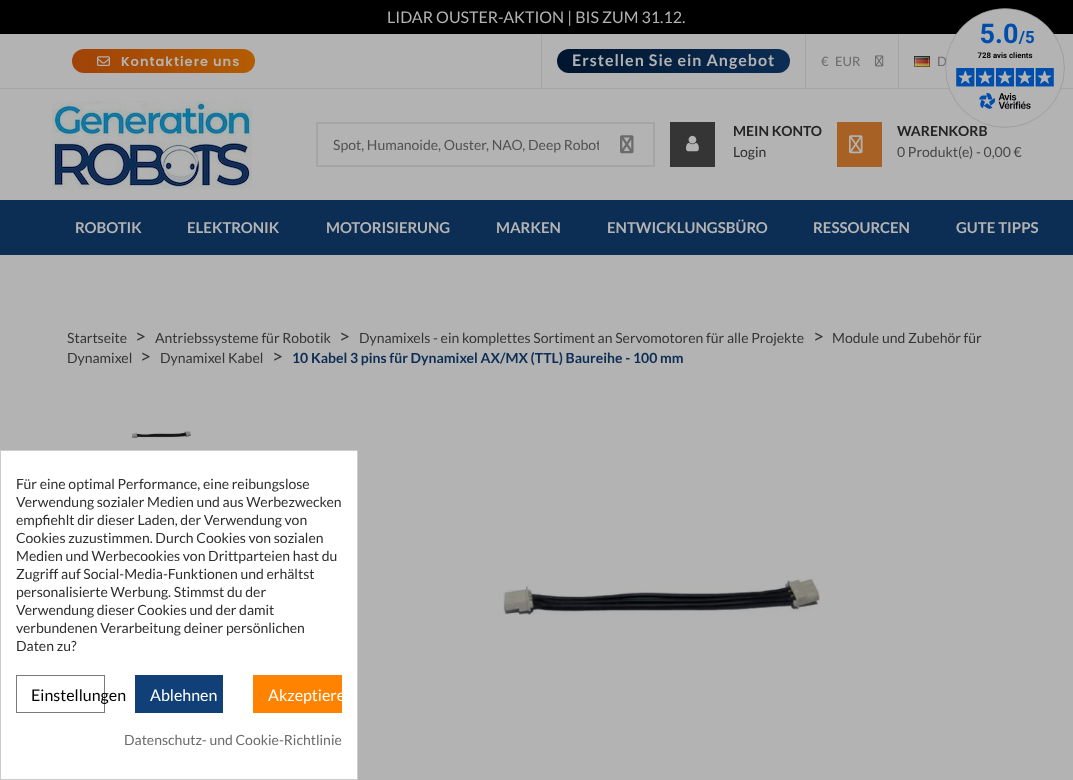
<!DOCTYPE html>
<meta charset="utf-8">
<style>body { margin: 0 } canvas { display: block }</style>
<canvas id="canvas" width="1073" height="780"></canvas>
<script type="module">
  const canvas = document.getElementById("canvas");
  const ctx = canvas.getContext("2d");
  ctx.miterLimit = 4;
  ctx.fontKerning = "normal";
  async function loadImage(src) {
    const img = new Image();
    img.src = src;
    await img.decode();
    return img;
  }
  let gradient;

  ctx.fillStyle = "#b3b3b3";
  ctx.fillRect(0, 0, 1073, 780);
  ctx.fillStyle = "#000000";
  ctx.fillRect(0, 0, 1073, 34);
  ctx.fillStyle = "#a5a5a5";
  ctx.fillRect(0, 88, 1073, 1);
  ctx.font = "13px Lato";
  ctx.fillStyle = "#6b6b6b";
  ctx.fillText("D", 937, 66);
  ctx.font = "bold 14px Lato";
  ctx.fillStyle = "#242424";
  ctx.fillText("WARENKORB", 897, 136);
  ctx.drawImage(await loadImage("img1.png"), 945, 8, 120, 120);
  ctx.font = "16px Lato";
  ctx.fillStyle = "#b3b3b3";
  ctx.fillText("LIDAR OUSTER-AKTION | BIS ZUM 31.12.", 387, 23);
  gradient = ctx.createLinearGradient(72, 61, 255, 61);
  gradient.addColorStop(0, "#a04308");
  gradient.addColorStop(1, "#b35c00");
  ctx.fillStyle = gradient;
  ctx.beginPath();
  ctx.roundRect(72, 49, 183, 24, 12);
  ctx.fill();
  ctx.drawImage(await loadImage("img2.png"), 97, 56, 13, 10);
  ctx.letterSpacing = "1px";
  ctx.font = "600 13px Poppins";
  ctx.fillStyle = "#b3b3b3";
  ctx.fillText("Kontaktiere uns", 121, 66);
  ctx.fillStyle = "#a5a5a5";
  ctx.fillRect(541, 34, 1, 54);
  gradient = ctx.createLinearGradient(557, 61, 790, 61);
  gradient.addColorStop(0, "#00152e");
  gradient.addColorStop(1, "#0c2d54");
  ctx.fillStyle = gradient;
  ctx.beginPath();
  ctx.roundRect(557, 49, 233, 24, 12);
  ctx.fill();
  ctx.font = "bold 16px Lato";
  ctx.fillStyle = "#b3b3b3";
  ctx.fillText("Erstellen Sie ein Angebot", 572, 66);
  ctx.fillStyle = "#a5a5a5";
  ctx.fillRect(805, 34, 1, 54);
  ctx.letterSpacing = "0px";
  ctx.font = "13px Lato";
  ctx.fillStyle = "#6b6b6b";
  ctx.fillText("€", 821, 66);
  ctx.fillText("EUR", 835, 66);
  ctx.drawImage(await loadImage("img3.png"), 875, 55, 9, 12);
  ctx.fillStyle = "#a5a5a5";
  ctx.fillRect(898, 34, 1, 54);
  ctx.drawImage(await loadImage("img4.png"), 914, 56, 16, 11);
  ctx.drawImage(await loadImage("img5.png"), 52, 101, 200, 88);
  ctx.strokeStyle = "#a5a5a5";
  ctx.lineWidth = 2;
  ctx.strokeRect(317, 123, 298, 43);
  ctx.save();
  ctx.beginPath();
  ctx.rect(333, 136, 266, 17);
  ctx.clip();
  ctx.font = "14px Lato";
  ctx.fillStyle = "#525252";
  ctx.fillText("Spot, Humanoide, Ouster, NAO, Deep Robot", 333, 150);
  ctx.restore();
  ctx.fillStyle = "#b3b3b3";
  ctx.fillRect(614, 124, 2, 41);
  ctx.fillStyle = "#a5a5a5";
  ctx.fillRect(616, 122, 39, 2);
  ctx.fillRect(653, 122, 2, 45);
  ctx.fillRect(616, 165, 39, 2);
  ctx.drawImage(await loadImage("img6.png"), 620, 135, 14, 19);
  ctx.fillStyle = "#353535";
  ctx.fillRect(670, 122, 45, 45);
  ctx.drawImage(await loadImage("img7.png"), 686, 135, 13, 17);
  ctx.font = "bold 14px Lato";
  ctx.fillStyle = "#242424";
  ctx.fillText("MEIN KONTO", 733, 136);
  ctx.font = "14px Lato";
  ctx.fillStyle = "#2e2e2e";
  ctx.fillText("Login", 733, 157);
  ctx.fillStyle = "#a76124";
  ctx.fillRect(837, 122, 45, 45);
  ctx.drawImage(await loadImage("img8.png"), 849, 135, 14, 19);
  ctx.fillStyle = "#474747";
  ctx.fillText("0 Produkt(e) - 0,00 €", 897, 157);
  ctx.fillStyle = "#0c2d54";
  ctx.fillRect(0, 200, 1073, 55);
  ctx.font = "bold 15px Lato";
  ctx.fillStyle = "#b3b3b3";
  ctx.fillText("ROBOTIK", 75, 233);
  ctx.fillText("ELEKTRONIK", 187, 233);
  ctx.fillText("MOTORISIERUNG", 326, 233);
  ctx.fillText("MARKEN", 496, 233);
  ctx.fillText("ENTWICKLUNGSBÜRO", 607, 233);
  ctx.fillText("RESSOURCEN", 813, 233);
  ctx.fillText("GUTE TIPPS", 956, 233);
  ctx.font = "14px Lato";
  ctx.fillStyle = "#353535";
  ctx.fillText("Startseite", 67, 343);
  ctx.font = "19px Lato";
  ctx.fillText(">", 135, 343);
  ctx.font = "14px Lato";
  ctx.fillText("Antriebssysteme für Robotik", 155, 343);
  ctx.font = "19px Lato";
  ctx.fillText(">", 339, 343);
  ctx.font = "14px Lato";
  ctx.fillText("Dynamixels - ein komplettes Sortiment an Servomotoren für alle Projekte", 359, 343);
  ctx.font = "19px Lato";
  ctx.fillText(">", 813, 343);
  ctx.font = "14px Lato";
  ctx.fillText("Module und Zubehör für", 832, 343);
  ctx.fillText("Dynamixel", 67, 363);
  ctx.font = "19px Lato";
  ctx.fillText(">", 140, 363);
  ctx.font = "14px Lato";
  ctx.fillText("Dynamixel Kabel", 160, 363);
  ctx.font = "19px Lato";
  ctx.fillText(">", 272, 363);
  ctx.font = "bold 14px Lato";
  ctx.fillStyle = "#0c2d54";
  ctx.fillText("10 Kabel 3 pins für Dynamixel AX/MX (TTL) Baureihe - 100 mm", 292, 363);
  ctx.drawImage(await loadImage("img9.png"), 131, 431, 60, 7);
  ctx.drawImage(await loadImage("img10.png"), 503, 578, 317, 37);
  ctx.fillStyle = "#ffffff";
  ctx.beginPath();
  ctx.rect(0.5, 450.5, 357, 329);
  ctx.fill();
  ctx.strokeStyle = "#cccccc";
  ctx.lineWidth = 1;
  ctx.stroke();
  ctx.font = "14px Lato";
  ctx.fillStyle = "#2e2e2e";
  ctx.fillText("Für eine optimal Performance, eine reibungslose", 16, 489);
  ctx.fillText("Verwendung sozialer Medien und aus Werbezwecken", 16, 507);
  ctx.fillText("empfiehlt dir dieser Laden, der Verwendung von", 16, 525);
  ctx.fillText("Cookies zuzustimmen. Durch Cookies von sozialen", 16, 543);
  ctx.fillText("Medien und Werbecookies von Drittparteien hast du", 16, 561);
  ctx.fillText("Zugriff auf Social-Media-Funktionen und erhältst", 16, 579);
  ctx.fillText("personalisierte Werbung. Stimmst du der", 16, 597);
  ctx.fillText("Verwendung dieser Cookies und der damit", 16, 615);
  ctx.fillText("verbundenen Verarbeitung deiner persönlichen", 16, 633);
  ctx.fillText("Daten zu?", 16, 651);
  ctx.strokeStyle = "#7a7a7a";
  ctx.strokeRect(16.5, 675.5, 88, 37);
  ctx.font = "16px Lato";
  ctx.fillStyle = "#000000";
  ctx.fillText("Einstellungen", 31, 701);
  ctx.fillStyle = "#114078";
  ctx.fillRect(135, 675, 88, 38);
  ctx.fillStyle = "#ffffff";
  ctx.fillText("Ablehnen", 150, 701);
  ctx.fillStyle = "#ff8300";
  ctx.fillRect(253, 675, 89, 38);
  ctx.fillStyle = "#ffffff";
  ctx.fillText("Akzeptiere", 268, 701);
  ctx.font = "14px Lato";
  ctx.fillStyle = "#6b6b6b";
  ctx.fillText("Datenschutz- und Cookie-Richtlinie", 124, 745);
</script>
